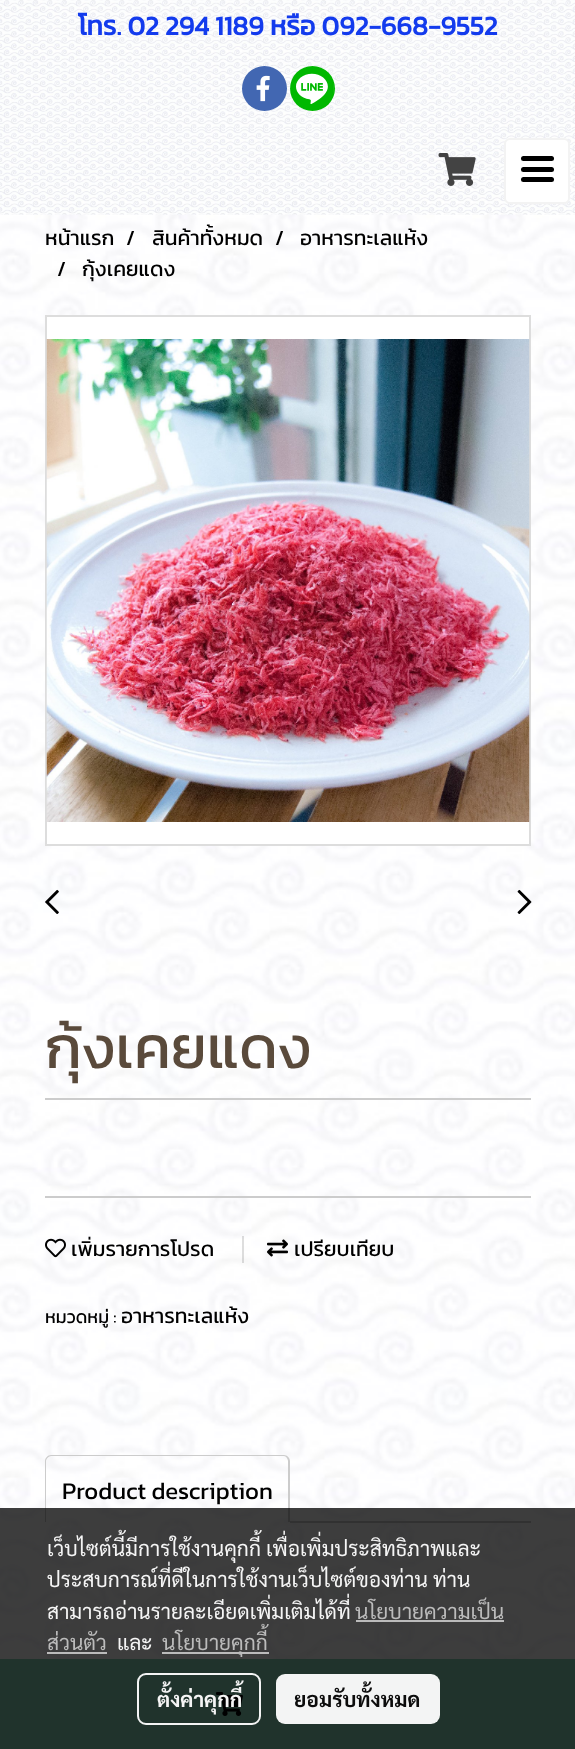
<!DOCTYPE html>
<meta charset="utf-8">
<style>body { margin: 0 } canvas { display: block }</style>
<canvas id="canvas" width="575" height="1749"></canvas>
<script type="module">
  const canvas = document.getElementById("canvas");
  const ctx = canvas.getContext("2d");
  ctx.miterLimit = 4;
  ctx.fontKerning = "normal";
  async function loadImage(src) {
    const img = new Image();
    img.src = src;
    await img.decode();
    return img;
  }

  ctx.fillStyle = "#ffffff";
  ctx.fillRect(0, 0, 575, 1749);
  ctx.drawImage(await loadImage("img1.png"), 0, 214, 575, 1445);
  ctx.drawImage(await loadImage("img2.png"), 0, 0, 575, 215);
  ctx.font = "bold 27px Kanit";
  ctx.fillStyle = "#133bed";
  ctx.fillText("โทร. 02 294 1189 หรือ 092-668-9552", 78, 35);
  ctx.fillStyle = "#4267b2";
  ctx.beginPath();
  ctx.arc(264.5, 88.5, 22.5, 0, Math.PI * 2);
  ctx.fill();
  ctx.drawImage(await loadImage("img3.png"), 256, 75, 14, 27);
  ctx.fillStyle = "#00b800";
  ctx.beginPath();
  ctx.arc(312.5, 88.5, 22.5, 0, Math.PI * 2);
  ctx.fill();
  ctx.drawImage(await loadImage("img4.png"), 290, 66, 44, 45);
  ctx.drawImage(await loadImage("img5.png"), 0, 129, 575, 86);
  ctx.drawImage(await loadImage("img6.png"), 438, 153, 38, 33);
  ctx.fillStyle = "#ffffff";
  ctx.beginPath();
  ctx.roundRect(505, 139, 64, 64, 5);
  ctx.fill();
  ctx.strokeStyle = "#f3f3f3";
  ctx.lineWidth = 2;
  ctx.stroke();
  ctx.fillStyle = "#000000";
  ctx.beginPath();
  ctx.roundRect(521, 167, 33, 5, 2.5);
  ctx.fill();
  ctx.beginPath();
  ctx.roundRect(521, 156, 33, 5, 2.5);
  ctx.fill();
  ctx.beginPath();
  ctx.roundRect(521, 177, 33, 5, 2.5);
  ctx.fill();
  ctx.font = "21px Kanit";
  ctx.fillText("หน้าแรก", 45, 245);
  ctx.fillText("/", 126, 245);
  ctx.fillText("สินค้าทั้งหมด", 152, 245);
  ctx.fillText("/", 275, 245);
  ctx.fillText("อาหารทะเลแห้ง", 300, 245);
  ctx.fillText("/", 57, 276);
  ctx.fillText("กุ้งเคยแดง", 82, 276);
  ctx.fillStyle = "#ffffff";
  ctx.beginPath();
  ctx.rect(46, 316, 484, 529);
  ctx.fill();
  ctx.strokeStyle = "#dddddd";
  ctx.stroke();
  ctx.drawImage(await loadImage("img7.png"), 46, 339, 484, 483);
  ctx.drawImage(await loadImage("img8.png"), 45, 889, 14, 25);
  ctx.drawImage(await loadImage("img9.png"), 517, 889, 15, 25);
  ctx.font = "60px Kanit";
  ctx.fillStyle = "#5a4a3b";
  ctx.fillText("กุ้งเคยแดง", 45, 1068);
  ctx.fillStyle = "#cccccc";
  ctx.fillRect(45, 1098, 486, 2);
  ctx.fillRect(45, 1196, 486, 2);
  ctx.drawImage(await loadImage("img10.png"), 45, 1238, 21, 20);
  ctx.font = "21px Kanit";
  ctx.fillStyle = "#000000";
  ctx.fillText("เพิ่มรายการโปรด", 71, 1256);
  ctx.fillStyle = "rgba(0, 0, 0, 0.13)";
  ctx.fillRect(242, 1236, 2, 27);
  ctx.drawImage(await loadImage("img11.png"), 267, 1239, 21, 18);
  ctx.fillStyle = "#000000";
  ctx.fillText("เปรียบเทียบ", 294, 1256);
  ctx.font = "18px Kanit";
  ctx.fillText("หมวดหมู่ :", 45, 1323);
  ctx.font = "21px Kanit";
  ctx.fillText("อาหารทะเลแห้ง", 121, 1323);
  ctx.fillStyle = "#86d4b6";
  ctx.fillRect(0, 1659, 575, 90);
  ctx.drawImage(await loadImage("img12.png"), 216, 1692, 27, 24);
  ctx.fillStyle = "#cccccc";
  ctx.beginPath();
  ctx.moveTo(51, 1455);
  ctx.lineTo(284, 1455);
  ctx.bezierCurveTo(287, 1455, 290, 1458, 290, 1461);
  ctx.lineTo(290, 1522);
  ctx.lineTo(45, 1522);
  ctx.lineTo(45, 1461);
  ctx.bezierCurveTo(45, 1458, 48, 1455, 51, 1455);
  ctx.closePath();
  ctx.moveTo(51, 1456);
  ctx.lineTo(284, 1456);
  ctx.bezierCurveTo(286, 1456, 288, 1459, 288, 1461);
  ctx.lineTo(288, 1522);
  ctx.lineTo(46, 1522);
  ctx.lineTo(46, 1461);
  ctx.bezierCurveTo(46, 1459, 49, 1456, 51, 1456);
  ctx.closePath();
  ctx.fill("evenodd");
  ctx.font = "24px Kanit";
  ctx.fillStyle = "#000000";
  ctx.fillText("Product description", 62, 1499);
  ctx.fillStyle = "#cccccc";
  ctx.fillRect(290, 1521, 241, 2);
  ctx.fillStyle = "rgba(0, 0, 0, 0.76)";
  ctx.fillRect(0, 1508, 575, 241);
  ctx.font = "21px Sarabun";
  ctx.fillStyle = "#f5f5f5";
  ctx.fillText("เว็บไซต์นี้มีการใช้งานคุกกี้ เพื่อเพิ่มประสิทธิภาพและ", 47, 1556);
  ctx.fillText("ประสบการณ์ที่ดีในการใช้งานเว็บไซต์ของท่าน ท่าน", 47, 1587);
  ctx.fillText("สามารถอ่านรายละเอียดเพิ่มเติมได้ที่", 47, 1619);
  ctx.fillStyle = "#bbbbbb";
  ctx.fillText("นโยบายความเป็น", 355, 1619);
  ctx.fillRect(356, 1620, 148, 2);
  ctx.fillText("ส่วนตัว", 47, 1650);
  ctx.fillRect(47, 1652, 60, 2);
  ctx.fillStyle = "#f5f5f5";
  ctx.fillText("และ", 117, 1650);
  ctx.fillStyle = "#bbbbbb";
  ctx.fillRect(162, 1652, 107, 2);
  ctx.fillText("นโยบายคุกกี้", 162, 1650);
  ctx.beginPath();
  ctx.roundRect(138, 1674, 122, 50, 8);
  ctx.strokeStyle = "rgba(255, 255, 255, 0.95)";
  ctx.stroke();
  ctx.font = "bold 21px Sarabun";
  ctx.fillStyle = "#f5f5f5";
  ctx.fillText("ตั้งค่าคุกกี้", 157, 1707);
  ctx.fillStyle = "rgba(255, 255, 255, 0.95)";
  ctx.beginPath();
  ctx.roundRect(276, 1674, 164, 50, 9);
  ctx.fill();
  ctx.fillStyle = "#0c0c0c";
  ctx.fillText("ยอมรับทั้งหมด", 294, 1707);
</script>
